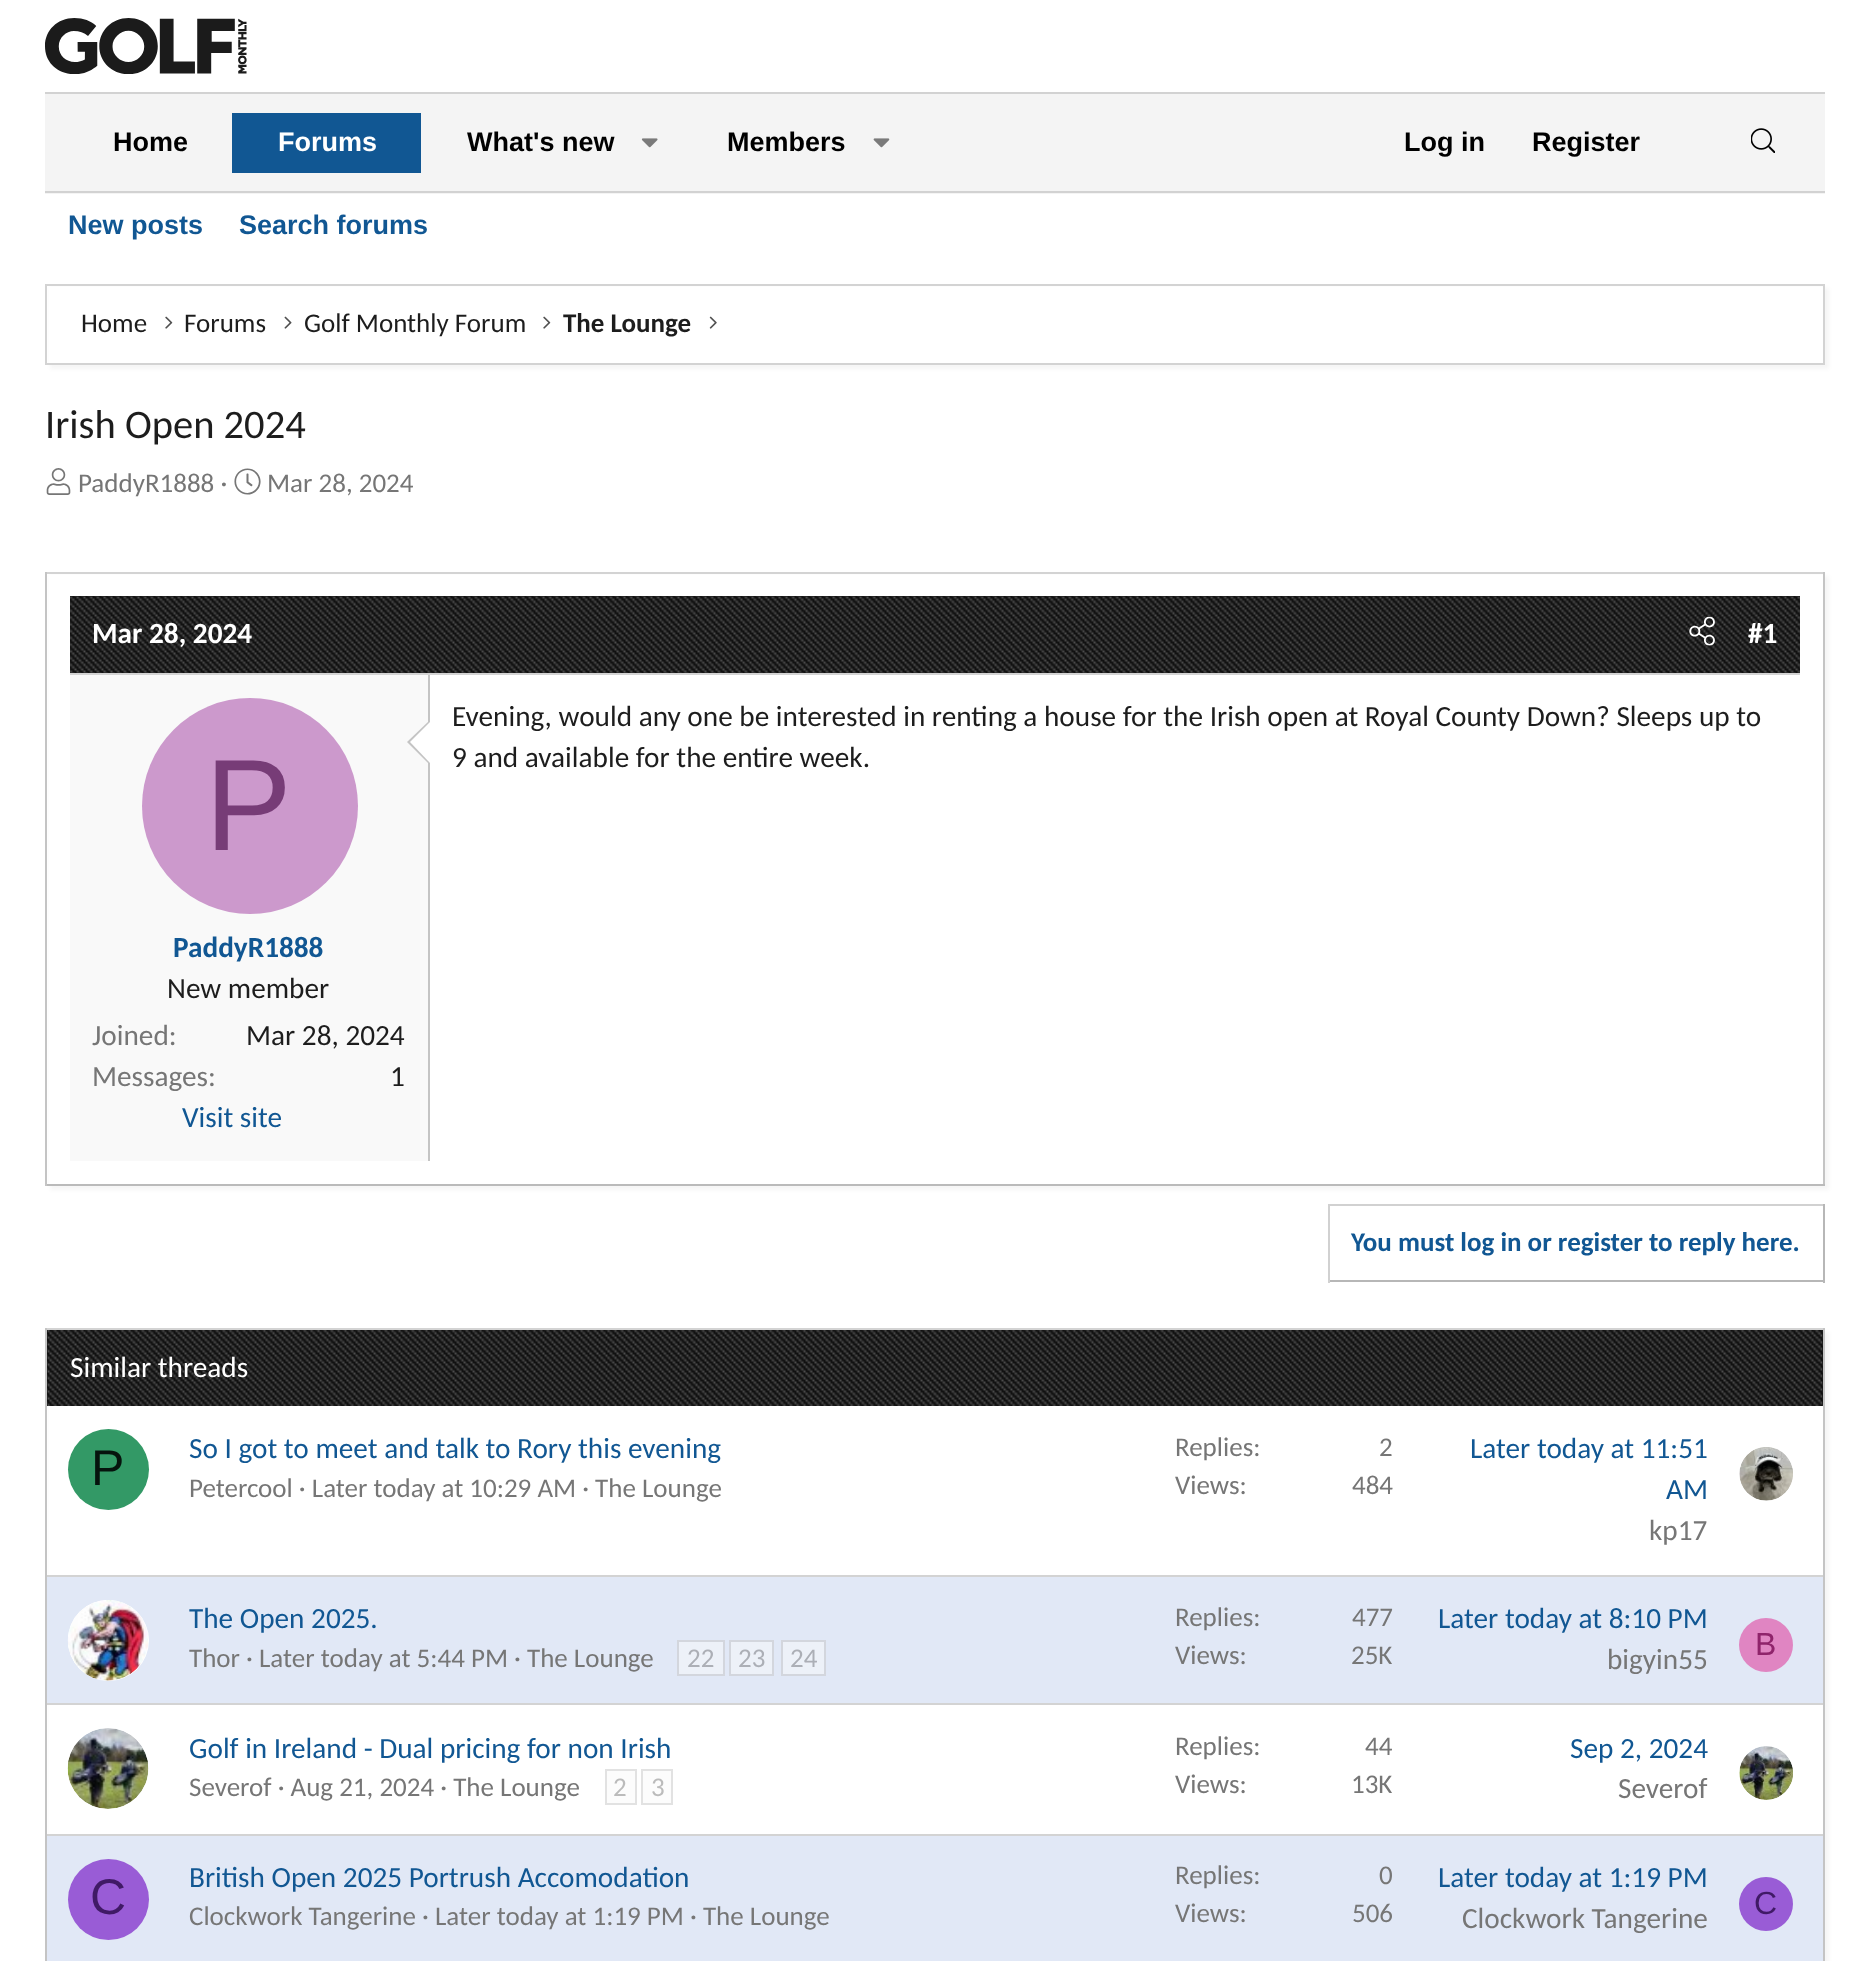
<!DOCTYPE html>
<meta charset="utf-8">
<style>body { margin: 0 } canvas { display: block }</style>
<canvas id="canvas" width="1868" height="1961"></canvas>
<script type="module">
  const canvas = document.getElementById("canvas");
  const ctx = canvas.getContext("2d");
  ctx.miterLimit = 4;
  ctx.fontKerning = "normal";
  async function loadImage(src) {
    const img = new Image();
    img.src = src;
    await img.decode();
    return img;
  }

  ctx.fillStyle = "#ffffff";
  ctx.fillRect(0, 0, 1868, 1961);
  ctx.drawImage(await loadImage("img1.png"), 45, 18, 202, 56);
  ctx.fillStyle = "#f4f4f4";
  ctx.fillRect(45, 94, 1780, 100);
  ctx.fillStyle = "#d2d2d2";
  ctx.fillRect(45, 92, 1780, 2);
  ctx.fillRect(45, 191, 1780, 2);
  ctx.font = "bold 27px Liberation Sans";
  ctx.fillStyle = "#000000";
  ctx.fillText("Home", 113, 151);
  ctx.fillStyle = "#115793";
  ctx.fillRect(232, 113, 189, 60);
  ctx.fillStyle = "#ffffff";
  ctx.fillText("Forums", 278, 151);
  ctx.fillStyle = "#000000";
  ctx.fillText("What's new", 467, 151);
  ctx.drawImage(await loadImage("img2.png"), 641, 138, 17, 10);
  ctx.fillText("Members", 727, 151);
  ctx.drawImage(await loadImage("img3.png"), 873, 138, 17, 10);
  ctx.fillText("Log in", 1404, 151);
  ctx.fillText("Register", 1532, 151);
  ctx.drawImage(await loadImage("img4.png"), 1751, 128, 24, 25);
  ctx.fillStyle = "#115793";
  ctx.fillText("New posts", 68, 234);
  ctx.fillText("Search forums", 239, 234);
  ctx.fillStyle = "rgba(0, 0, 0, 0.04)";
  ctx.filter = "blur(2px)";
  ctx.beginPath();
  ctx.rect(50, 288, 1779, 81);
  ctx.fill();
  ctx.filter = "none";
  ctx.fillStyle = "#ffffff";
  ctx.fillRect(49, 287, 1774, 76);
  ctx.strokeStyle = "#d3d3d3";
  ctx.lineWidth = 2;
  ctx.strokeRect(46, 285, 1778, 79);
  ctx.font = "27px Carlito";
  ctx.fillStyle = "#1d1d1d";
  ctx.fillText("Home", 81, 332);
  ctx.drawImage(await loadImage("img5.png"), 165, 316, 8, 13);
  ctx.fillText("Forums", 184, 332);
  ctx.drawImage(await loadImage("img6.png"), 284, 316, 8, 13);
  ctx.fillText("Golf Monthly Forum", 304, 332);
  ctx.drawImage(await loadImage("img5.png"), 543, 316, 8, 13);
  ctx.font = "bold 27px Carlito";
  ctx.fillText("The Lounge", 563, 332);
  ctx.drawImage(await loadImage("img7.png"), 709, 316, 8, 13);
  ctx.font = "40.5px Carlito";
  ctx.fillText("Irish Open 2024", 45, 438);
  ctx.drawImage(await loadImage("img8.png"), 46, 468, 25, 27);
  ctx.font = "27px Carlito";
  ctx.fillStyle = "#767676";
  ctx.fillText("PaddyR1888 ·", 78, 492);
  ctx.drawImage(await loadImage("img9.png"), 234, 468, 27, 27);
  ctx.fillText("Mar 28, 2024", 267, 492);
  ctx.fillStyle = "rgba(0, 0, 0, 0.04)";
  ctx.filter = "blur(2px)";
  ctx.beginPath();
  ctx.rect(50, 576, 1779, 614);
  ctx.fill();
  ctx.filter = "none";
  ctx.fillStyle = "#ffffff";
  ctx.fillRect(49, 575, 1774, 609);
  ctx.fillStyle = "#d3d3d3";
  ctx.fillRect(45, 572, 1780, 2);
  ctx.fillStyle = "#c4c4c4";
  ctx.fillRect(1823, 572, 2, 614);
  ctx.fillStyle = "#bababa";
  ctx.fillRect(45, 1184, 1780, 2);
  ctx.fillStyle = "#c4c4c4";
  ctx.fillRect(45, 572, 2, 614);
  ctx.fillStyle = "#111111";
  ctx.fillRect(70, 596, 1730, 77);
  ctx.drawImage(await loadImage("img10.png"), 70, 596, 1730, 77);
  ctx.fillStyle = "#d3d3d3";
  ctx.fillRect(70, 673, 1730, 2);
  ctx.font = "bold 29.25px Carlito";
  ctx.fillStyle = "#ffffff";
  ctx.fillText("Mar 28, 2024", 92, 643);
  ctx.drawImage(await loadImage("img11.png"), 1689, 616, 26, 30);
  ctx.fillText("#1", 1748, 643);
  ctx.font = "29.25px Carlito";
  ctx.fillStyle = "#1d1d1d";
  ctx.fillText("Evening, would any one be interested in renting a house for the Irish open at Royal County Down? Sleeps up to", 452, 726);
  ctx.fillText("9 and available for the entire week.", 452, 767);
  ctx.fillStyle = "#f9f9f9";
  ctx.fillRect(70, 675, 358, 486);
  ctx.fillStyle = "#c4c4c4";
  ctx.fillRect(428, 675, 2, 486);
  ctx.beginPath();
  ctx.moveTo(430, 720);
  ctx.lineTo(430, 765);
  ctx.lineTo(407, 742);
  ctx.closePath();
  ctx.fill();
  ctx.fillStyle = "#ffffff";
  ctx.beginPath();
  ctx.moveTo(430, 722);
  ctx.lineTo(430, 763);
  ctx.lineTo(410, 742);
  ctx.closePath();
  ctx.fill();
  ctx.fillStyle = "#cc99cc";
  ctx.beginPath();
  ctx.arc(250, 806, 108, 0, Math.PI * 2);
  ctx.fill();
  ctx.font = "130px Liberation Sans";
  ctx.fillStyle = "#773c77";
  ctx.fillText("P", 205, 850);
  ctx.font = "bold 29.25px Carlito";
  ctx.fillStyle = "#115793";
  ctx.fillText("PaddyR1888", 173, 957);
  ctx.font = "29.25px Carlito";
  ctx.fillStyle = "#1d1d1d";
  ctx.fillText("New member", 167, 998);
  ctx.fillStyle = "#767676";
  ctx.fillText("Joined:", 92, 1045);
  ctx.fillStyle = "#1d1d1d";
  ctx.fillText("Mar 28, 2024", 246, 1045);
  ctx.fillStyle = "#767676";
  ctx.fillText("Messages:", 92, 1086);
  ctx.fillStyle = "#1d1d1d";
  ctx.fillText("1", 390, 1086);
  ctx.fillStyle = "#115793";
  ctx.fillText("Visit site", 182, 1127);
  ctx.fillStyle = "#d1d1d1";
  ctx.fillRect(1328, 1204, 497, 2);
  ctx.fillStyle = "#b7b7b7";
  ctx.fillRect(1823, 1204, 2, 79);
  ctx.fillRect(1328, 1280, 497, 2);
  ctx.fillStyle = "#d1d1d1";
  ctx.fillRect(1328, 1204, 2, 79);
  ctx.font = "bold 27px Carlito";
  ctx.fillStyle = "#115793";
  ctx.fillText("You must log in or register to reply here.", 1351, 1251);
  ctx.fillStyle = "rgba(0, 0, 0, 0.04)";
  ctx.filter = "blur(2px)";
  ctx.beginPath();
  ctx.rect(50, 1332, 1779, 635);
  ctx.fill();
  ctx.filter = "none";
  ctx.fillStyle = "#ffffff";
  ctx.fillRect(49, 1406, 1774, 428);
  ctx.fillStyle = "#d3d3d3";
  ctx.fillRect(45, 1328, 1780, 2);
  ctx.fillStyle = "#c4c4c4";
  ctx.fillRect(1823, 1328, 2, 633);
  ctx.fillRect(45, 1328, 2, 633);
  ctx.fillStyle = "#111111";
  ctx.fillRect(47, 1330, 1776, 76);
  ctx.drawImage(await loadImage("img12.png"), 47, 1330, 1776, 76);
  ctx.font = "29.25px Carlito";
  ctx.fillStyle = "#ffffff";
  ctx.fillText("Similar threads", 70, 1377);
  ctx.fillStyle = "#339966";
  ctx.beginPath();
  ctx.arc(108.5, 1469.5, 40.5, 0, Math.PI * 2);
  ctx.fill();
  ctx.font = "50px Liberation Sans";
  ctx.fillStyle = "#06130d";
  ctx.fillText("P", 91, 1485);
  ctx.font = "29.25px Carlito";
  ctx.fillStyle = "#115793";
  ctx.fillText("So I got to meet and talk to Rory this evening", 189, 1458);
  ctx.font = "27px Carlito";
  ctx.fillStyle = "#767676";
  ctx.fillText("Petercool · Later today at 10:29 AM · The Lounge", 189, 1497);
  ctx.fillText("Replies:", 1175, 1456);
  ctx.fillText("2", 1379, 1456);
  ctx.fillText("Views:", 1175, 1494);
  ctx.fillText("484", 1352, 1494);
  ctx.font = "29.25px Carlito";
  ctx.fillStyle = "#115793";
  ctx.fillText("Later today at 11:51", 1470, 1458);
  ctx.fillText("AM", 1666, 1499);
  ctx.fillStyle = "#767676";
  ctx.fillText("kp17", 1649, 1540);
  ctx.drawImage(await loadImage("img13.png"), 1739, 1447, 54, 54);
  ctx.fillStyle = "#e1e8f6";
  ctx.fillRect(47, 1577, 1776, 126);
  ctx.fillStyle = "#d3d3d3";
  ctx.fillRect(47, 1575, 1776, 2);
  ctx.fillStyle = "#ffffff";
  ctx.beginPath();
  ctx.arc(108.5, 1640.5, 40.5, 0, Math.PI * 2);
  ctx.fill();
  ctx.drawImage(await loadImage("img14.png"), 67, 1600, 81, 81);
  ctx.fillStyle = "#115793";
  ctx.fillText("The Open 2025.", 189, 1628);
  ctx.font = "27px Carlito";
  ctx.fillStyle = "#767676";
  ctx.fillText("Thor · Later today at 5:44 PM · The Lounge", 189, 1667);
  ctx.fillStyle = "#edf1f8";
  ctx.beginPath();
  ctx.rect(678, 1641, 46, 34);
  ctx.fill();
  ctx.strokeStyle = "#d3d6dd";
  ctx.stroke();
  ctx.fillStyle = "#acafb6";
  ctx.fillText("22", 687, 1667);
  ctx.fillStyle = "#edf1f8";
  ctx.beginPath();
  ctx.rect(730, 1641, 43, 34);
  ctx.fill();
  ctx.stroke();
  ctx.fillStyle = "#acafb6";
  ctx.fillText("23", 738, 1667);
  ctx.fillStyle = "#edf1f8";
  ctx.beginPath();
  ctx.rect(782, 1641, 43, 34);
  ctx.fill();
  ctx.stroke();
  ctx.fillStyle = "#acafb6";
  ctx.fillText("24", 790, 1667);
  ctx.fillStyle = "#767676";
  ctx.fillText("Replies:", 1175, 1626);
  ctx.fillText("477", 1352, 1626);
  ctx.fillText("Views:", 1175, 1664);
  ctx.fillText("25K", 1351, 1664);
  ctx.font = "29.25px Carlito";
  ctx.fillStyle = "#115793";
  ctx.fillText("Later today at 8:10 PM", 1438, 1628);
  ctx.fillStyle = "#767676";
  ctx.fillText("bigyin55", 1607, 1669);
  ctx.fillStyle = "#e085c2";
  ctx.beginPath();
  ctx.arc(1766, 1645, 27, 0, Math.PI * 2);
  ctx.fill();
  ctx.font = "32px Liberation Sans";
  ctx.fillStyle = "#8f246b";
  ctx.fillText("B", 1755, 1655);
  ctx.fillStyle = "#d3d3d3";
  ctx.fillRect(47, 1703, 1776, 2);
  ctx.drawImage(await loadImage("img15.png"), 67, 1728, 82, 81);
  ctx.font = "29.25px Carlito";
  ctx.fillStyle = "#115793";
  ctx.fillText("Golf in Ireland - Dual pricing for non Irish", 189, 1758);
  ctx.font = "27px Carlito";
  ctx.fillStyle = "#767676";
  ctx.fillText("Severof · Aug 21, 2024 · The Lounge", 189, 1796);
  ctx.fillStyle = "#fcfcfc";
  ctx.beginPath();
  ctx.rect(606, 1770, 30, 34);
  ctx.fill();
  ctx.strokeStyle = "#e2e2e2";
  ctx.stroke();
  ctx.fillStyle = "#bbbbbb";
  ctx.fillText("2", 613, 1796);
  ctx.fillStyle = "#fcfcfc";
  ctx.beginPath();
  ctx.rect(642, 1770, 30, 34);
  ctx.fill();
  ctx.stroke();
  ctx.fillStyle = "#bbbbbb";
  ctx.fillText("3", 651, 1796);
  ctx.fillStyle = "#767676";
  ctx.fillText("Replies:", 1175, 1755);
  ctx.fillText("44", 1365, 1755);
  ctx.fillText("Views:", 1175, 1793);
  ctx.fillText("13K", 1351, 1793);
  ctx.font = "29.25px Carlito";
  ctx.fillStyle = "#115793";
  ctx.fillText("Sep 2, 2024", 1570, 1758);
  ctx.fillStyle = "#767676";
  ctx.fillText("Severof", 1618, 1798);
  ctx.drawImage(await loadImage("img16.png"), 1739, 1746, 54, 54);
  ctx.fillStyle = "#e1e8f6";
  ctx.fillRect(47, 1836, 1776, 125);
  ctx.fillStyle = "#d3d3d3";
  ctx.fillRect(47, 1834, 1776, 2);
  ctx.fillStyle = "#995cd6";
  ctx.beginPath();
  ctx.arc(108.5, 1899.5, 40.5, 0, Math.PI * 2);
  ctx.fill();
  ctx.font = "50px Liberation Sans";
  ctx.fillStyle = "#401a66";
  ctx.fillText("C", 90, 1914);
  ctx.font = "29.25px Carlito";
  ctx.fillStyle = "#115793";
  ctx.fillText("British Open 2025 Portrush Accomodation", 189, 1887);
  ctx.font = "27px Carlito";
  ctx.fillStyle = "#767676";
  ctx.fillText("Clockwork Tangerine · Later today at 1:19 PM · The Lounge", 189, 1925);
  ctx.fillText("Replies:", 1175, 1884);
  ctx.fillText("0", 1379, 1884);
  ctx.fillText("Views:", 1175, 1922);
  ctx.fillText("506", 1352, 1922);
  ctx.font = "29.25px Carlito";
  ctx.fillStyle = "#115793";
  ctx.fillText("Later today at 1:19 PM", 1438, 1887);
  ctx.fillStyle = "#767676";
  ctx.fillText("Clockwork Tangerine", 1462, 1928);
  ctx.fillStyle = "#995cd6";
  ctx.beginPath();
  ctx.arc(1766, 1904, 27, 0, Math.PI * 2);
  ctx.fill();
  ctx.font = "32px Liberation Sans";
  ctx.fillStyle = "#401a66";
  ctx.fillText("C", 1754, 1914);
</script>
